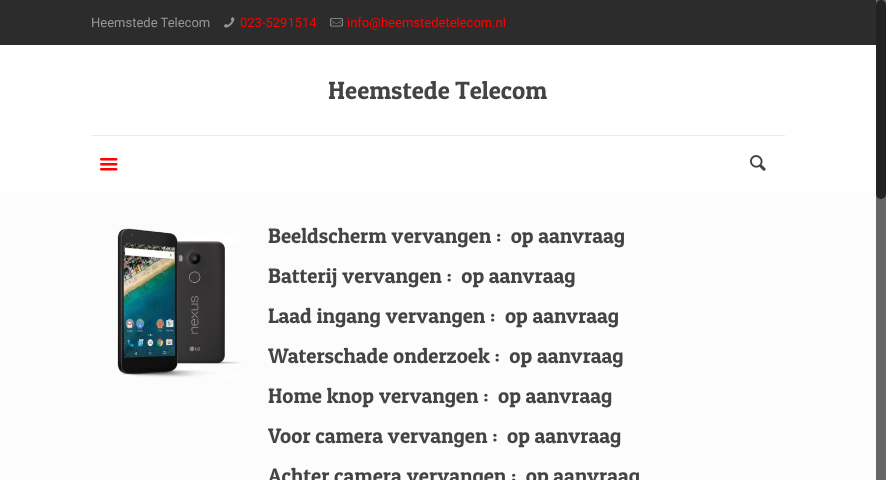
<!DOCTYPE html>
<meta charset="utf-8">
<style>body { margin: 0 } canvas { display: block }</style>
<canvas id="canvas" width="886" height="480"></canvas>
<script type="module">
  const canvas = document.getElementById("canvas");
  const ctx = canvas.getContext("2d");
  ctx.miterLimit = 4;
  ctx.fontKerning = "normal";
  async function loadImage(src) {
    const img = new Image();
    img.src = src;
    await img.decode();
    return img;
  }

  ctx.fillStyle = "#fcfcfc";
  ctx.fillRect(0, 0, 886, 480);
  ctx.fillStyle = "#2c2c2c";
  ctx.fillRect(0, 0, 876, 45);
  ctx.font = "13px Roboto";
  ctx.fillStyle = "#969696";
  ctx.fillText("Heemstede Telecom", 91, 27);
  ctx.drawImage(await loadImage("img1.png"), 224, 17, 11, 11);
  ctx.fillStyle = "#ff0202";
  ctx.fillText("023-5291514", 240, 27);
  ctx.drawImage(await loadImage("img2.png"), 330, 18, 13, 9);
  ctx.fillText("info@heemstedetelecom.nl", 347, 27);
  ctx.fillStyle = "#ffffff";
  ctx.fillRect(0, 45, 876, 148);
  ctx.fillStyle = "#ebebeb";
  ctx.fillRect(91, 135, 694, 1);
  ctx.font = "25px Patua One";
  ctx.fillStyle = "#444444";
  ctx.fillText("Heemstede Telecom", 328, 99);
  ctx.drawImage(await loadImage("img3.png"), 100, 158, 18, 13);
  ctx.drawImage(await loadImage("img4.png"), 750, 155, 16, 16);
  ctx.drawImage(await loadImage("img5.png"), 117, 228, 124, 150);
  ctx.font = "21px Patua One";
  ctx.fillText("Beeldscherm vervangen :  op aanvraag", 268, 243);
  ctx.fillText("Batterij vervangen :  op aanvraag", 268, 283);
  ctx.fillText("Laad ingang vervangen :  op aanvraag", 268, 323);
  ctx.fillText("Waterschade onderzoek :  op aanvraag", 268, 363);
  ctx.fillText("Home knop vervangen :  op aanvraag", 268, 403);
  ctx.fillText("Voor camera vervangen :  op aanvraag", 268, 443);
  ctx.fillText("Achter camera vervangen :  op aanvraag", 268, 483);
  ctx.fillStyle = "#666666";
  ctx.fillRect(876, 0, 10, 480);
  ctx.fillStyle = "#222222";
  ctx.beginPath();
  ctx.roundRect(876, 0, 10, 199, 5);
  ctx.fill();
</script>
